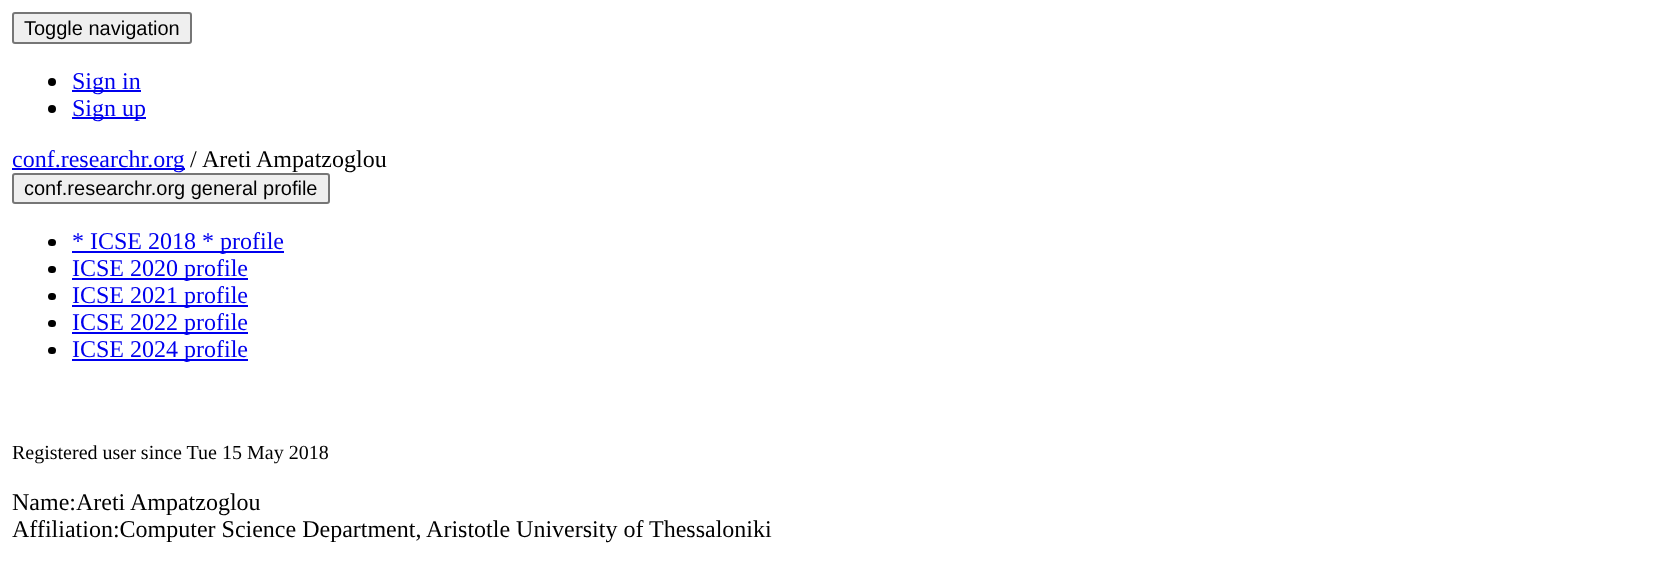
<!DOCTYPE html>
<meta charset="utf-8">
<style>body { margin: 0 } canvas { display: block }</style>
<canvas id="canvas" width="1674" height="564"></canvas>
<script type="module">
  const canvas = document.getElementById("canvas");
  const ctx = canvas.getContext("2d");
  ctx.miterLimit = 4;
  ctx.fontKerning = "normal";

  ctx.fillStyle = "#ffffff";
  ctx.fillRect(0, 0, 1674, 564);
  ctx.fillStyle = "#efefef";
  ctx.beginPath();
  ctx.roundRect(13, 13, 178, 30, 2);
  ctx.fill();
  ctx.strokeStyle = "#767676";
  ctx.lineWidth = 2;
  ctx.stroke();
  ctx.font = "20px Liberation Sans";
  ctx.fillStyle = "#000000";
  ctx.fillText("Toggle navigation", 24, 35);
  ctx.beginPath();
  ctx.arc(52, 82, 4, 0, Math.PI * 2);
  ctx.fill();
  ctx.fillStyle = "#0000ee";
  ctx.fillRect(72, 90, 69, 2);
  ctx.font = "24px Liberation Serif";
  ctx.fillText("Sign in", 72, 89);
  ctx.fillStyle = "#000000";
  ctx.beginPath();
  ctx.arc(52, 109, 4, 0, Math.PI * 2);
  ctx.fill();
  ctx.fillStyle = "#0000ee";
  ctx.fillRect(72, 117, 74, 2);
  ctx.fillText("Sign up", 72, 116);
  ctx.fillRect(12, 168, 173, 2);
  ctx.fillText("conf.researchr.org", 12, 167);
  ctx.fillStyle = "#000000";
  ctx.fillText("/", 190, 167);
  ctx.fillText("Areti Ampatzoglou", 202, 167);
  ctx.fillStyle = "#efefef";
  ctx.beginPath();
  ctx.roundRect(13, 174, 316, 29, 2);
  ctx.fill();
  ctx.stroke();
  ctx.font = "20px Liberation Sans";
  ctx.fillStyle = "#000000";
  ctx.fillText("conf.researchr.org general profile", 24, 195);
  ctx.beginPath();
  ctx.roundRect(48, 239, 8, 7, 3.5);
  ctx.fill();
  ctx.fillStyle = "#0000ee";
  ctx.fillRect(72, 251, 212, 2);
  ctx.font = "24px Liberation Serif";
  ctx.fillText("* ICSE 2018 * profile", 72, 249);
  ctx.fillStyle = "#000000";
  ctx.beginPath();
  ctx.roundRect(48, 266, 8, 7, 3.5);
  ctx.fill();
  ctx.fillStyle = "#0000ee";
  ctx.fillRect(72, 278, 176, 2);
  ctx.fillText("ICSE 2020 profile", 72, 276);
  ctx.fillStyle = "#000000";
  ctx.beginPath();
  ctx.roundRect(48, 293, 8, 7, 3.5);
  ctx.fill();
  ctx.fillStyle = "#0000ee";
  ctx.fillRect(72, 305, 176, 2);
  ctx.fillText("ICSE 2021 profile", 72, 303);
  ctx.fillStyle = "#000000";
  ctx.beginPath();
  ctx.roundRect(48, 320, 8, 7, 3.5);
  ctx.fill();
  ctx.fillStyle = "#0000ee";
  ctx.fillRect(72, 332, 176, 2);
  ctx.fillText("ICSE 2022 profile", 72, 330);
  ctx.fillStyle = "#000000";
  ctx.beginPath();
  ctx.roundRect(48, 347, 8, 7, 3.5);
  ctx.fill();
  ctx.fillStyle = "#0000ee";
  ctx.fillRect(72, 359, 176, 2);
  ctx.fillText("ICSE 2024 profile", 72, 357);
  ctx.font = "20px Liberation Serif";
  ctx.fillStyle = "#000000";
  ctx.fillText("Registered user since Tue 15 May 2018", 12, 459);
  ctx.font = "24px Liberation Serif";
  ctx.fillText("Name:Areti Ampatzoglou", 12, 510);
  ctx.fillText("Affiliation:Computer Science Department, Aristotle University of Thessaloniki", 12, 537);
</script>
